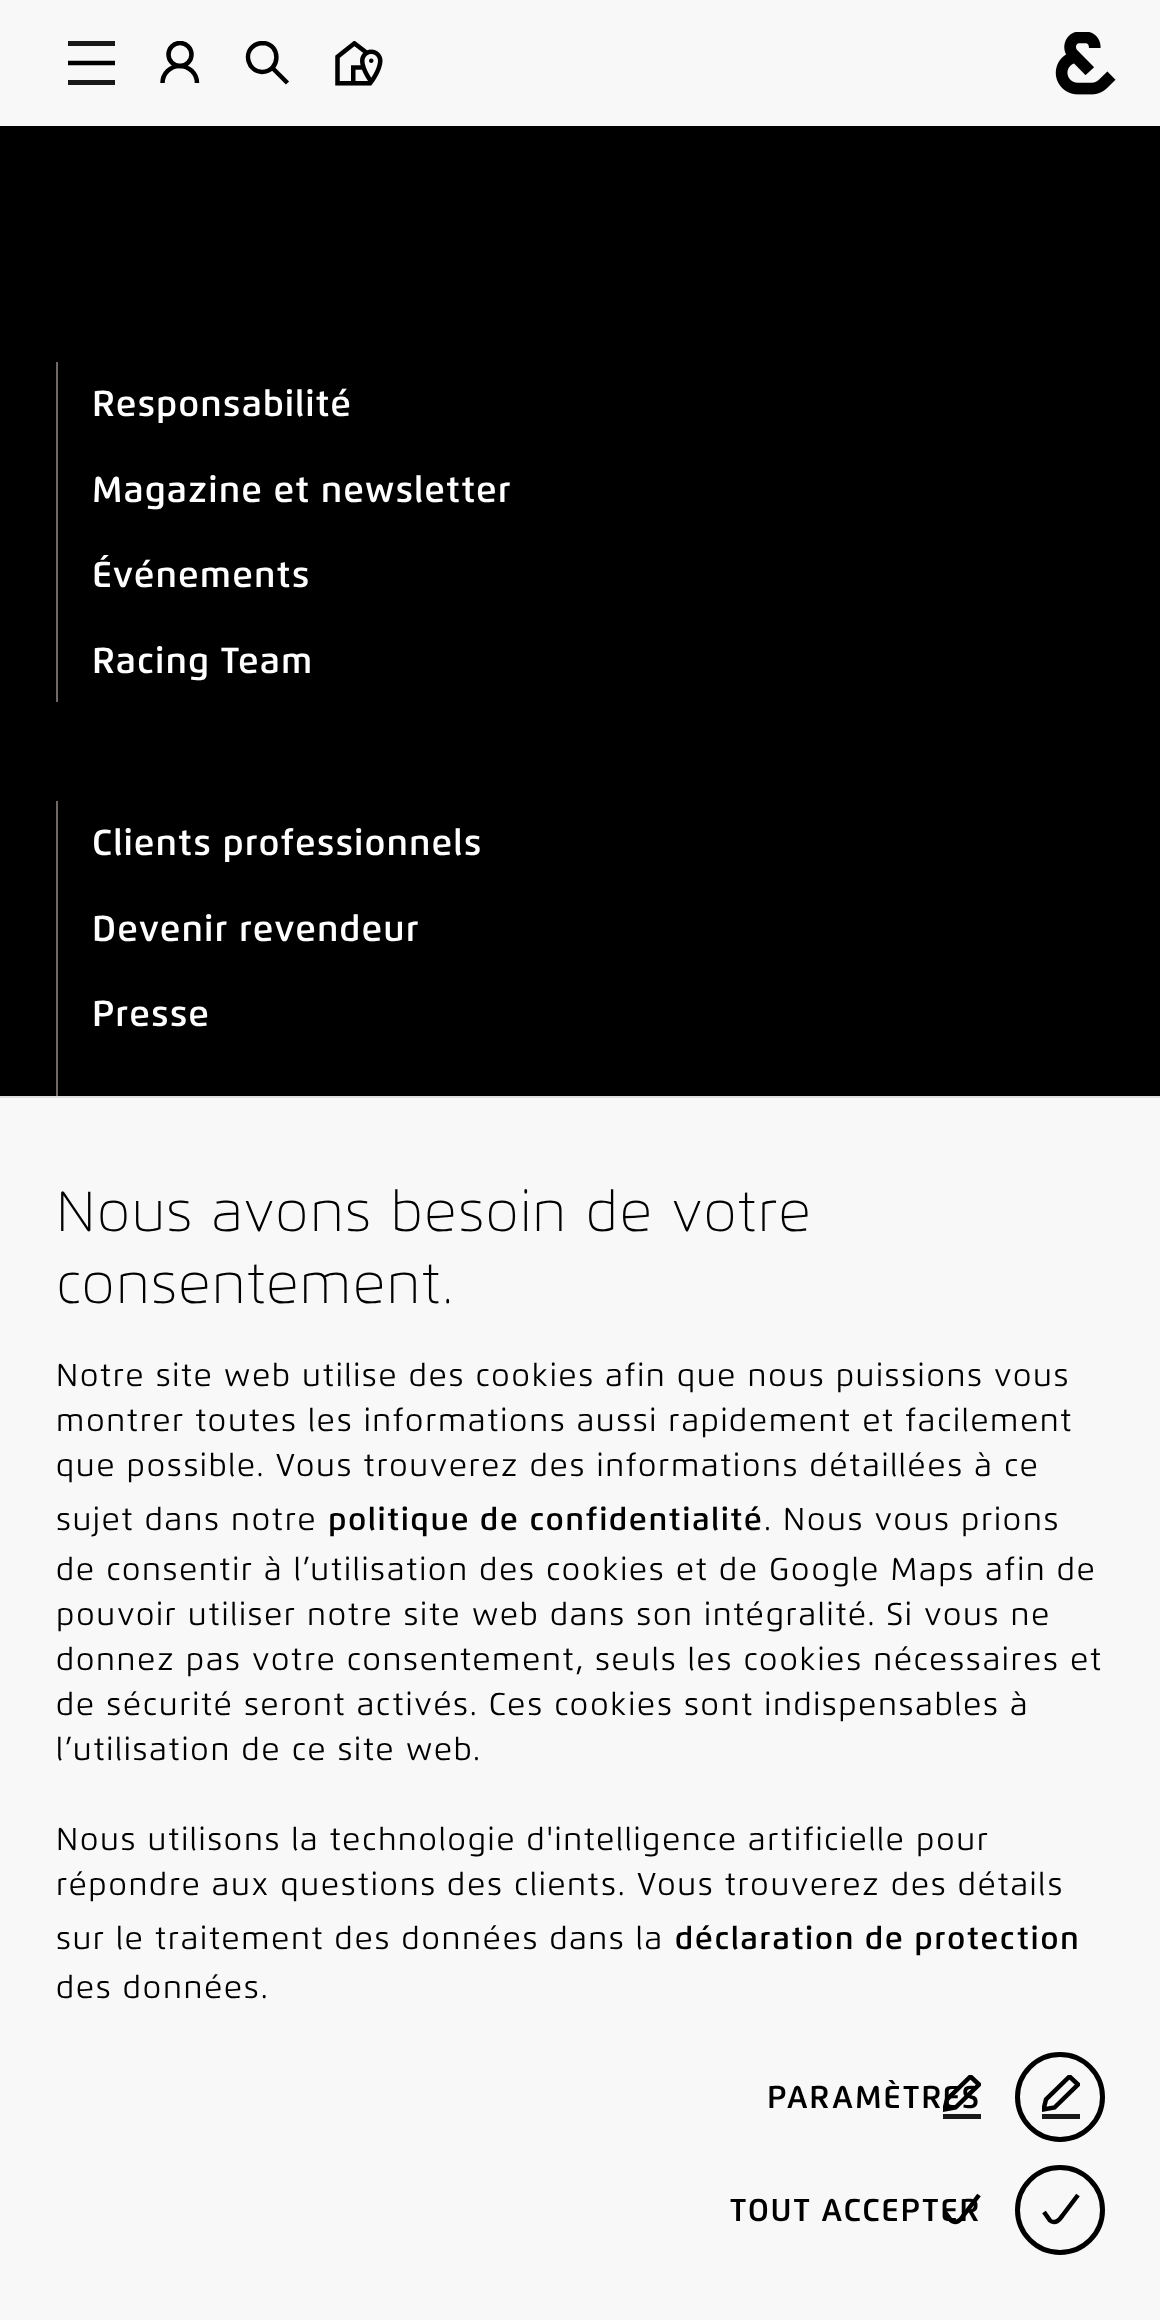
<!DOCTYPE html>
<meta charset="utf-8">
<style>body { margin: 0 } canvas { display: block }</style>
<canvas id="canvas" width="1160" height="2320"></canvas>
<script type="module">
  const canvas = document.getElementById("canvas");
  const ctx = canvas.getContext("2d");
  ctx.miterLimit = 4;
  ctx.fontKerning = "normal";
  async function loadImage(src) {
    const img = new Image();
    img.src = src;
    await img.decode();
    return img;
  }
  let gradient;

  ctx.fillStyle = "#000000";
  ctx.fillRect(0, 0, 1160, 2320);
  ctx.fillStyle = "#6e6967";
  ctx.fillRect(56, 362, 2, 340);
  ctx.letterSpacing = "1.1px";
  ctx.font = "600 36px 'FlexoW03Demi'";
  ctx.fillStyle = "#ffffff";
  ctx.fillText("Responsabilité", 92, 416);
  ctx.fillText("Magazine et newsletter", 92, 502);
  ctx.fillText("Événements", 92, 587);
  ctx.fillText("Racing Team", 92, 673);
  ctx.fillStyle = "#6e6967";
  ctx.fillRect(56, 801, 2, 295);
  ctx.fillStyle = "#ffffff";
  ctx.fillText("Clients professionnels", 92, 855);
  ctx.fillText("Devenir revendeur", 92, 941);
  ctx.fillText("Presse", 92, 1026);
  gradient = ctx.createLinearGradient(0, 63, 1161, 63);
  gradient.addColorStop(0, "#f8f8f8");
  gradient.addColorStop(0.5, "#f8f8f8");
  gradient.addColorStop(1, "#000000");
  ctx.fillStyle = gradient;
  ctx.fillRect(0, 0, 577, 126);
  gradient = ctx.createLinearGradient(0, 63, 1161, 63);
  gradient.addColorStop(0, "rgba(248, 248, 248, 0)");
  gradient.addColorStop(0.5, "#f8f8f8");
  gradient.addColorStop(1, "#f8f8f8");
  ctx.fillStyle = gradient;
  ctx.fillRect(577, 0, 583, 126);
  ctx.fillStyle = "#191919";
  ctx.fillRect(68, 41, 47, 5);
  ctx.save();
  ctx.beginPath();
  ctx.rect(68, 41, 47, 45);
  ctx.clip();
  ctx.beginPath();
  ctx.moveTo(67.5, 63);
  ctx.lineTo(115.5, 63);
  ctx.strokeStyle = "#000000";
  ctx.lineWidth = 4.5;
  ctx.stroke();
  ctx.restore();
  ctx.fillRect(68, 80, 47, 5);
  ctx.save();
  ctx.beginPath();
  ctx.rect(160, 41, 40, 45);
  ctx.clip();
  ctx.beginPath();
  ctx.arc(180, 54.5, 11.5, 0, Math.PI * 2);
  ctx.strokeStyle = "#000000";
  ctx.lineWidth = 4.5;
  ctx.stroke();
  ctx.restore();
  ctx.beginPath();
  ctx.moveTo(162.5, 83);
  ctx.bezierCurveTo(162.5, 73.5, 170.5, 66, 179.5, 66);
  ctx.bezierCurveTo(189, 66, 197, 73.5, 197, 83);
  ctx.strokeStyle = "#000000";
  ctx.lineWidth = 4.5;
  ctx.stroke();
  ctx.save();
  ctx.beginPath();
  ctx.rect(245, 41, 45, 45);
  ctx.clip();
  ctx.beginPath();
  ctx.moveTo(262, 72);
  ctx.bezierCurveTo(280.5, 72, 281.5, 44, 263, 43);
  ctx.bezierCurveTo(260, 43, 257.5, 43.5, 255, 45);
  ctx.bezierCurveTo(242.5, 52.5, 248, 71.5, 262, 72);
  ctx.closePath();
  ctx.stroke();
  ctx.restore();
  ctx.beginPath();
  ctx.moveTo(272.5, 68);
  ctx.lineTo(287.5, 83);
  ctx.stroke();
  ctx.drawImage(await loadImage("img1.png"), 335, 41, 48, 45);
  ctx.drawImage(await loadImage("img2.png"), 1055, 32, 61, 63);
  ctx.fillStyle = "#f8f8f8";
  ctx.fillRect(0, 1098, 1160, 1222);
  ctx.fillStyle = "#dfdfdf";
  ctx.fillRect(0, 1096, 1160, 2);
  ctx.letterSpacing = "0.95px";
  ctx.font = "100 56.25px 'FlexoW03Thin'";
  ctx.fillStyle = "#000000";
  ctx.fillText("Nous avons besoin de votre", 56, 1231);
  ctx.fillText("consentement.", 56, 1303);
  ctx.letterSpacing = "1.57px";
  ctx.font = "31.5px 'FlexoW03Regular'";
  ctx.fillText("Notre site web utilise des cookies afin que nous puissions vous", 56, 1386);
  ctx.fillText("montrer toutes les informations aussi rapidement et facilement", 56, 1431);
  ctx.fillText("que possible. Vous trouverez des informations détaillées à ce", 56, 1476);
  ctx.fillText("sujet dans notre", 56, 1530);
  ctx.font = "600 31.5px 'FlexoW03Demi'";
  ctx.fillText("politique de confidentialité", 328, 1530);
  ctx.font = "31.5px 'FlexoW03Regular'";
  ctx.fillText(". Nous vous prions", 764, 1530);
  ctx.fillText("de consentir à l’utilisation des cookies et de Google Maps afin de", 56, 1580);
  ctx.fillText("pouvoir utiliser notre site web dans son intégralité. Si vous ne", 56, 1625);
  ctx.fillText("donnez pas votre consentement, seuls les cookies nécessaires et", 56, 1670);
  ctx.fillText("de sécurité seront activés. Ces cookies sont indispensables à", 56, 1715);
  ctx.fillText("l’utilisation de ce site web.", 56, 1760);
  ctx.fillText("Nous utilisons la technologie d'intelligence artificielle pour", 56, 1850);
  ctx.fillText("répondre aux questions des clients. Vous trouverez des détails", 56, 1895);
  ctx.fillText("sur le traitement des données dans la", 56, 1949);
  ctx.font = "600 31.5px 'FlexoW03Demi'";
  ctx.fillText("déclaration de protection", 675, 1949);
  ctx.font = "31.5px 'FlexoW03Regular'";
  ctx.fillText("des données.", 56, 1998);
  ctx.font = "600 31.5px 'FlexoW03Demi'";
  ctx.fillText("PARAMÈTRES", 767, 2108);
  ctx.save();
  ctx.beginPath();
  ctx.rect(943, 2075, 38, 45);
  ctx.clip();
  ctx.beginPath();
  ctx.moveTo(970.5, 2076.5);
  ctx.lineTo(947, 2099.5);
  ctx.lineTo(944.5, 2109.5);
  ctx.lineTo(955.5, 2107.5);
  ctx.lineTo(979, 2084.5);
  ctx.closePath();
  ctx.stroke();
  ctx.restore();
  ctx.fillStyle = "#191919";
  ctx.fillRect(943, 2114, 38, 5);
  ctx.save();
  ctx.beginPath();
  ctx.rect(1042, 2075, 38, 45);
  ctx.clip();
  ctx.beginPath();
  ctx.moveTo(1069.5, 2076.5);
  ctx.lineTo(1046, 2099.5);
  ctx.lineTo(1043.5, 2109.5);
  ctx.lineTo(1054.5, 2107.5);
  ctx.lineTo(1078, 2084.5);
  ctx.closePath();
  ctx.stroke();
  ctx.restore();
  ctx.fillRect(1042, 2114, 38, 5);
  ctx.beginPath();
  ctx.arc(1060, 2097, 42.5, 0, Math.PI * 2);
  ctx.lineWidth = 5;
  ctx.stroke();
  ctx.fillStyle = "#000000";
  ctx.fillText("TOUT ACCEPTER", 730, 2221);
  ctx.beginPath();
  ctx.moveTo(945, 2212);
  ctx.lineTo(951, 2220.5);
  ctx.bezierCurveTo(952, 2221.5, 953.5, 2222, 955, 2222);
  ctx.bezierCurveTo(959.5, 2222, 961, 2218.5, 963.5, 2215.5);
  ctx.lineTo(979, 2195);
  ctx.lineWidth = 4.5;
  ctx.lineJoin = "round";
  ctx.stroke();
  ctx.beginPath();
  ctx.moveTo(1044, 2212);
  ctx.lineTo(1050, 2220.5);
  ctx.bezierCurveTo(1051, 2221.5, 1052.5, 2222, 1054, 2222);
  ctx.bezierCurveTo(1058.5, 2222, 1060, 2218.5, 1062.5, 2215.5);
  ctx.lineTo(1078, 2195);
  ctx.stroke();
  ctx.beginPath();
  ctx.arc(1060, 2210, 42.5, 0, Math.PI * 2);
  ctx.lineWidth = 5;
  ctx.stroke();
</script>
